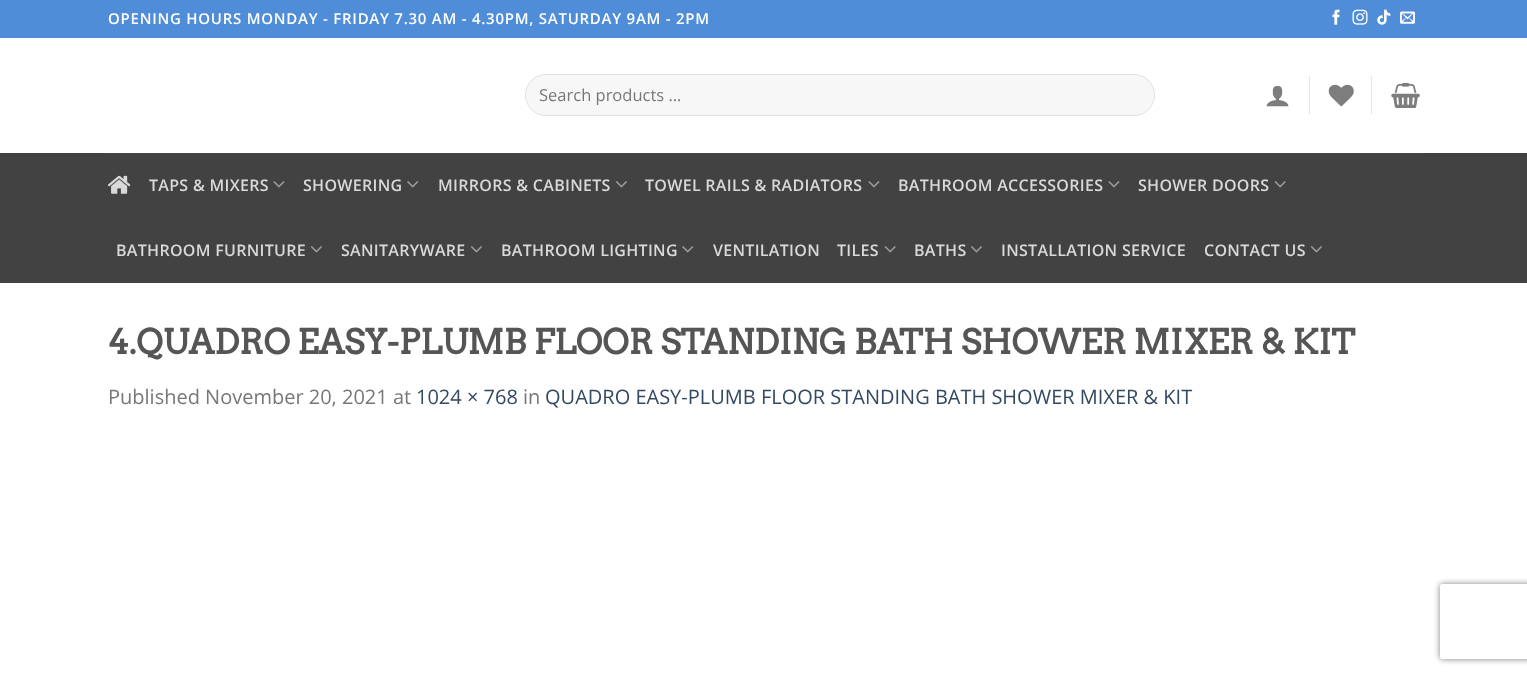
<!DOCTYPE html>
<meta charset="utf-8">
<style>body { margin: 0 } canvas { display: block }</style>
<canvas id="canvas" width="1527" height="676"></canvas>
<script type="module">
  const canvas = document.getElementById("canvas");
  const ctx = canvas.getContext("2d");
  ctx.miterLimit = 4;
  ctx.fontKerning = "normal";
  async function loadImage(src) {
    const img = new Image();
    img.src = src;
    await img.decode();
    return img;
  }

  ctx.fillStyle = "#ffffff";
  ctx.fillRect(0, 0, 1527, 676);
  ctx.fillStyle = "#508dd8";
  ctx.fillRect(0, 0, 1527, 38);
  ctx.letterSpacing = "0.75px";
  ctx.font = "600 15px Open Sans";
  ctx.fillStyle = "#ffffff";
  ctx.fillText("OPENING HOURS MONDAY - FRIDAY 7.30 AM - 4.30PM, SATURDAY 9AM - 2PM", 108, 24);
  ctx.drawImage(await loadImage("img1.png"), 1332, 9, 8, 16);
  ctx.drawImage(await loadImage("img2.png"), 1352, 9, 16, 16);
  ctx.drawImage(await loadImage("img3.png"), 1377, 9, 14, 16);
  ctx.drawImage(await loadImage("img4.png"), 1400, 11, 15, 13);
  ctx.fillStyle = "#f7f7f7";
  ctx.beginPath();
  ctx.roundRect(525, 74, 630, 42, 21);
  ctx.fill();
  ctx.beginPath();
  ctx.roundRect(525.5, 74.5, 629, 41, 20.5);
  ctx.strokeStyle = "rgba(0, 0, 0, 0.09)";
  ctx.stroke();
  ctx.letterSpacing = "0px";
  ctx.font = "16.5px Open Sans";
  ctx.fillStyle = "#777777";
  ctx.fillText("Search products …", 539, 101);
  ctx.drawImage(await loadImage("img5.png"), 1266, 85, 23, 22);
  ctx.fillStyle = "#e6e6e6";
  ctx.fillRect(1309, 76, 1, 38);
  ctx.drawImage(await loadImage("img6.png"), 1328, 84, 26, 23);
  ctx.fillRect(1371, 76, 1, 38);
  ctx.drawImage(await loadImage("img7.png"), 1391, 83, 29, 25);
  ctx.fillStyle = "#424242";
  ctx.fillRect(0, 153, 1527, 130);
  ctx.fillStyle = "#474747";
  ctx.fillRect(108, 153, 1312, 1);
  ctx.drawImage(await loadImage("img8.png"), 107, 175, 24, 19);
  ctx.letterSpacing = "0.3px";
  ctx.font = "600 16px Open Sans";
  ctx.fillStyle = "#d9d9d9";
  ctx.fillText("TAPS & MIXERS", 149, 191);
  ctx.drawImage(await loadImage("img9.png"), 273, 181, 12, 7);
  ctx.fillText("SHOWERING", 303, 191);
  ctx.drawImage(await loadImage("img10.png"), 407, 181, 12, 7);
  ctx.fillText("MIRRORS & CABINETS", 438, 191);
  ctx.drawImage(await loadImage("img11.png"), 616, 181, 11, 7);
  ctx.fillText("TOWEL RAILS & RADIATORS", 645, 191);
  ctx.drawImage(await loadImage("img9.png"), 868, 181, 12, 7);
  ctx.fillText("BATHROOM ACCESSORIES", 898, 191);
  ctx.drawImage(await loadImage("img9.png"), 1108, 181, 12, 7);
  ctx.fillText("SHOWER DOORS", 1138, 191);
  ctx.drawImage(await loadImage("img12.png"), 1274, 181, 12, 7);
  ctx.fillText("BATHROOM FURNITURE", 116, 256);
  ctx.drawImage(await loadImage("img11.png"), 311, 246, 11, 7);
  ctx.fillText("SANITARYWARE", 341, 256);
  ctx.drawImage(await loadImage("img11.png"), 471, 246, 11, 7);
  ctx.fillText("BATHROOM LIGHTING", 501, 256);
  ctx.drawImage(await loadImage("img10.png"), 682, 246, 12, 7);
  ctx.fillText("VENTILATION", 713, 256);
  ctx.fillText("TILES", 837, 256);
  ctx.drawImage(await loadImage("img12.png"), 884, 246, 12, 7);
  ctx.fillText("BATHS", 914, 256);
  ctx.drawImage(await loadImage("img11.png"), 971, 246, 11, 7);
  ctx.fillText("INSTALLATION SERVICE", 1001, 256);
  ctx.fillText("CONTACT US", 1204, 256);
  ctx.drawImage(await loadImage("img11.png"), 1311, 246, 11, 7);
  ctx.letterSpacing = "0px";
  ctx.font = "bold 34px Arvo";
  ctx.fillStyle = "#555555";
  ctx.fillText("4.QUADRO EASY-PLUMB FLOOR STANDING BATH SHOWER MIXER & KIT", 108, 354);
  ctx.font = "20px Open Sans";
  ctx.fillStyle = "#777777";
  ctx.fillText("Published November 20, 2021 at", 108, 404);
  ctx.fillStyle = "#334862";
  ctx.fillText("1024 × 768", 416, 404);
  ctx.fillStyle = "#777777";
  ctx.fillText("in", 523, 404);
  ctx.fillStyle = "#334862";
  ctx.fillText("QUADRO EASY-PLUMB FLOOR STANDING BATH SHOWER MIXER & KIT", 545, 404);
  ctx.save();
  ctx.beginPath();
  ctx.moveTo(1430, 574);
  ctx.lineTo(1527, 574);
  ctx.lineTo(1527, 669);
  ctx.lineTo(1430, 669);
  ctx.closePath();
  ctx.moveTo(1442.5, 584);
  ctx.lineTo(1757.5, 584);
  ctx.bezierCurveTo(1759, 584, 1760, 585, 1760, 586.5);
  ctx.lineTo(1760, 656.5);
  ctx.bezierCurveTo(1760, 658, 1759, 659, 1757.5, 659);
  ctx.lineTo(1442.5, 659);
  ctx.bezierCurveTo(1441, 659, 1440, 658, 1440, 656.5);
  ctx.lineTo(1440, 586.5);
  ctx.bezierCurveTo(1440, 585, 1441, 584, 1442.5, 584);
  ctx.closePath();
  ctx.clip("evenodd");
  ctx.fillStyle = "#808080";
  ctx.filter = "blur(3px)";
  ctx.beginPath();
  ctx.roundRect(1440, 584, 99, 75, 2.5);
  ctx.fill();
  ctx.filter = "none";
  ctx.restore();
</script>
